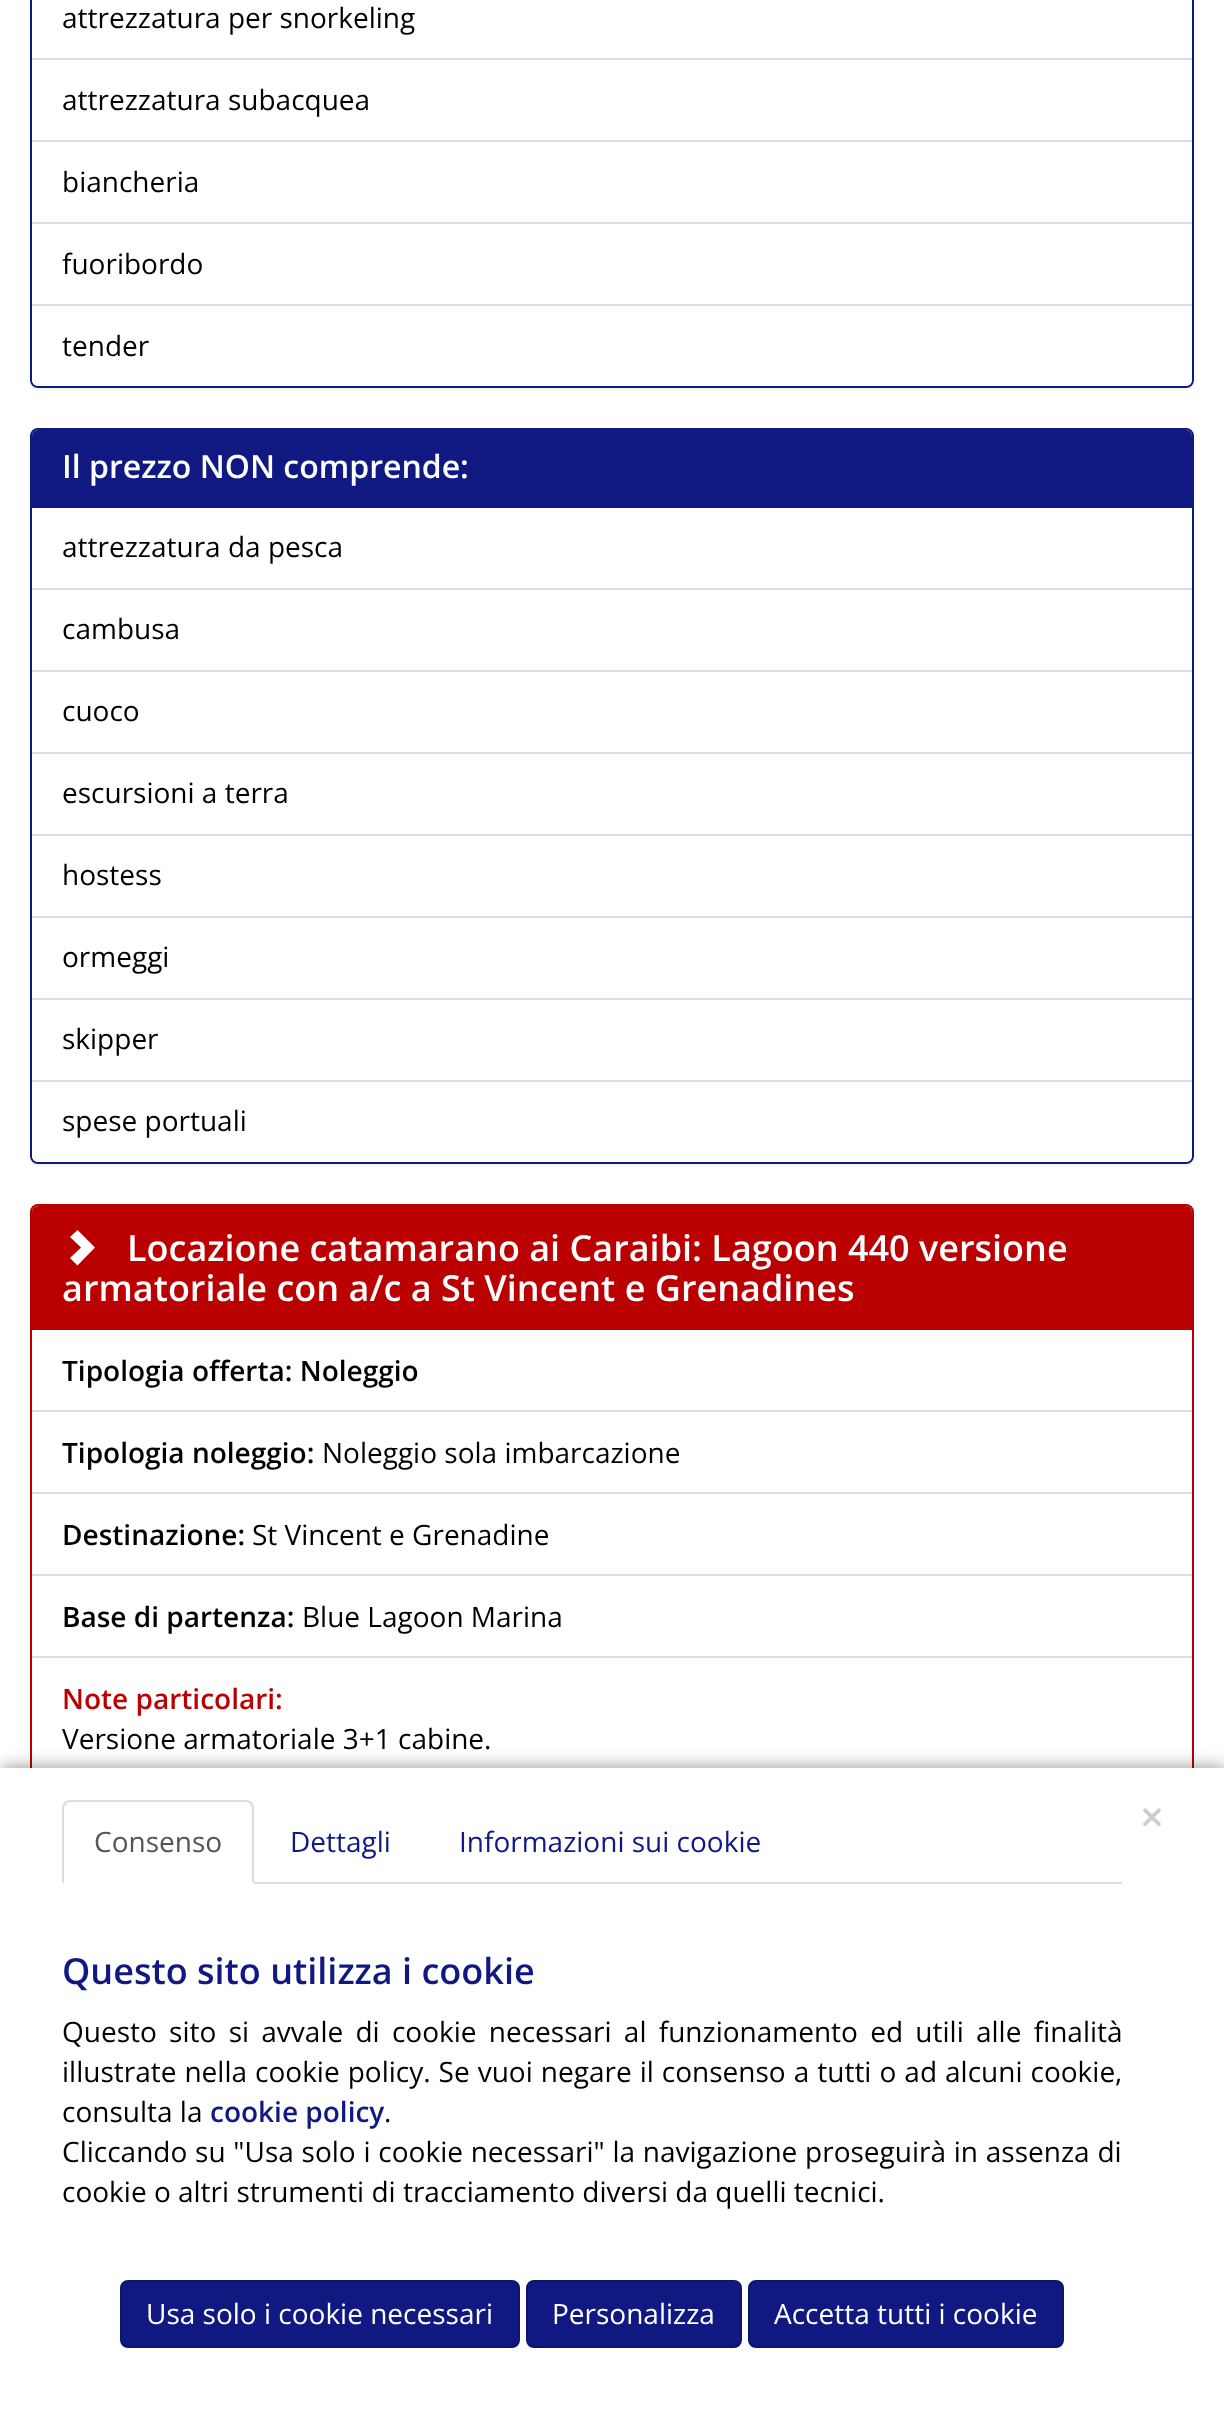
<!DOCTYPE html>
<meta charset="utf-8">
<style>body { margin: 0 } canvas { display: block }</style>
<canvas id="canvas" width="1224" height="2420"></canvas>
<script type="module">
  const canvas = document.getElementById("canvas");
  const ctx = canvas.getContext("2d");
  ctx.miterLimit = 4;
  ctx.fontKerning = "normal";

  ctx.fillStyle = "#ffffff";
  ctx.fillRect(0, 0, 1224, 2420);
  ctx.fillStyle = "rgba(0, 0, 0, 0.05)";
  ctx.filter = "blur(1px)";
  ctx.beginPath();
  ctx.roundRect(30, -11, 1164, 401, 8);
  ctx.fill();
  ctx.filter = "none";
  ctx.fillStyle = "#ffffff";
  ctx.beginPath();
  ctx.roundRect(31, -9, 1162, 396, 7);
  ctx.fill();
  ctx.strokeStyle = "#101982";
  ctx.lineWidth = 2;
  ctx.stroke();
  ctx.fillStyle = "#dddddd";
  ctx.fillRect(32, 58, 1160, 2);
  ctx.font = "28px Open Sans";
  ctx.fillStyle = "#000000";
  ctx.fillText("attrezzatura per snorkeling", 62, 28);
  ctx.fillStyle = "#dddddd";
  ctx.fillRect(32, 140, 1160, 2);
  ctx.fillStyle = "#000000";
  ctx.fillText("attrezzatura subacquea", 62, 110);
  ctx.fillStyle = "#dddddd";
  ctx.fillRect(32, 222, 1160, 2);
  ctx.fillStyle = "#000000";
  ctx.fillText("biancheria", 62, 192);
  ctx.fillText("fuoribordo", 62, 274);
  ctx.fillStyle = "#ffffff";
  ctx.beginPath();
  ctx.roundRect(32, 304, 1160, 82, [0, 0, 6, 6]);
  ctx.fill();
  ctx.fillStyle = "#dddddd";
  ctx.fillRect(32, 304, 1160, 2);
  ctx.fillStyle = "#000000";
  ctx.fillText("tender", 62, 356);
  ctx.fillStyle = "rgba(0, 0, 0, 0.05)";
  ctx.filter = "blur(1px)";
  ctx.beginPath();
  ctx.roundRect(30, 430, 1164, 736, 8);
  ctx.fill();
  ctx.filter = "none";
  ctx.fillStyle = "#ffffff";
  ctx.beginPath();
  ctx.roundRect(31, 429, 1162, 734, 7);
  ctx.fill();
  ctx.stroke();
  ctx.fillStyle = "#101982";
  ctx.beginPath();
  ctx.roundRect(32, 430, 1160, 78, [6, 6, 0, 0]);
  ctx.fill();
  ctx.font = "600 32px Open Sans";
  ctx.fillStyle = "#ffffff";
  ctx.fillText("Il prezzo NON comprende:", 62, 478);
  ctx.fillStyle = "#dddddd";
  ctx.fillRect(32, 588, 1160, 2);
  ctx.font = "28px Open Sans";
  ctx.fillStyle = "#000000";
  ctx.fillText("attrezzatura da pesca", 62, 557);
  ctx.fillStyle = "#dddddd";
  ctx.fillRect(32, 670, 1160, 2);
  ctx.fillStyle = "#000000";
  ctx.fillText("cambusa", 62, 639);
  ctx.fillStyle = "#dddddd";
  ctx.fillRect(32, 752, 1160, 2);
  ctx.fillStyle = "#000000";
  ctx.fillText("cuoco", 62, 721);
  ctx.fillStyle = "#dddddd";
  ctx.fillRect(32, 834, 1160, 2);
  ctx.fillStyle = "#000000";
  ctx.fillText("escursioni a terra", 62, 803);
  ctx.fillStyle = "#dddddd";
  ctx.fillRect(32, 916, 1160, 2);
  ctx.fillStyle = "#000000";
  ctx.fillText("hostess", 62, 885);
  ctx.fillStyle = "#dddddd";
  ctx.fillRect(32, 998, 1160, 2);
  ctx.fillStyle = "#000000";
  ctx.fillText("ormeggi", 62, 967);
  ctx.fillText("skipper", 62, 1049);
  ctx.fillStyle = "#ffffff";
  ctx.beginPath();
  ctx.roundRect(32, 1080, 1160, 82, [0, 0, 6, 6]);
  ctx.fill();
  ctx.fillStyle = "#dddddd";
  ctx.fillRect(32, 1080, 1160, 2);
  ctx.fillStyle = "#000000";
  ctx.fillText("spese portuali", 62, 1131);
  ctx.beginPath();
  ctx.roundRect(31, 1205, 1162, 694, 7);
  ctx.strokeStyle = "#ba0000";
  ctx.stroke();
  ctx.fillStyle = "#ba0000";
  ctx.beginPath();
  ctx.roundRect(32, 1206, 1160, 124, [6, 6, 0, 0]);
  ctx.fill();
  ctx.fillStyle = "#ffffff";
  ctx.beginPath();
  ctx.moveTo(70, 1258);
  ctx.lineTo(81, 1247.5);
  ctx.lineTo(70, 1237);
  ctx.lineTo(77.5, 1230);
  ctx.lineTo(95, 1247.5);
  ctx.lineTo(77.5, 1265.5);
  ctx.closePath();
  ctx.fill();
  ctx.font = "600 36px Open Sans";
  ctx.fillText("Locazione catamarano ai Caraibi: Lagoon 440 versione", 127, 1261);
  ctx.fillText("armatoriale con a/c a St Vincent e Grenadines", 62, 1301);
  ctx.fillStyle = "#dddddd";
  ctx.fillRect(32, 1410, 1160, 2);
  ctx.font = "600 28px Open Sans";
  ctx.fillStyle = "#000000";
  ctx.fillText("Tipologia offerta: Noleggio", 62, 1381);
  ctx.fillStyle = "#dddddd";
  ctx.fillRect(32, 1492, 1160, 2);
  ctx.fillStyle = "#000000";
  ctx.fillText("Tipologia noleggio:", 62, 1463);
  ctx.font = "28px Open Sans";
  ctx.fillText("Noleggio sola imbarcazione", 322, 1463);
  ctx.fillStyle = "#dddddd";
  ctx.fillRect(32, 1574, 1160, 2);
  ctx.font = "600 28px Open Sans";
  ctx.fillStyle = "#000000";
  ctx.fillText("Destinazione:", 62, 1545);
  ctx.font = "28px Open Sans";
  ctx.fillText("St Vincent e Grenadine", 252, 1545);
  ctx.font = "600 28px Open Sans";
  ctx.fillText("Base di partenza:", 62, 1627);
  ctx.font = "28px Open Sans";
  ctx.fillText("Blue Lagoon Marina", 302, 1627);
  ctx.fillStyle = "#dddddd";
  ctx.fillRect(32, 1656, 1160, 2);
  ctx.font = "600 28px Open Sans";
  ctx.fillStyle = "#ba0000";
  ctx.fillText("Note particolari:", 62, 1709);
  ctx.font = "28px Open Sans";
  ctx.fillStyle = "#000000";
  ctx.fillText("Versione armatoriale 3+1 cabine.", 62, 1749);
  ctx.fillStyle = "rgba(0, 0, 0, 0.45)";
  ctx.filter = "blur(9px)";
  ctx.beginPath();
  ctx.rect(2, 1768, 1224, 652);
  ctx.fill();
  ctx.filter = "none";
  ctx.fillStyle = "#ffffff";
  ctx.fillRect(0, 1768, 1224, 652);
  ctx.font = "600 42px Open Sans";
  ctx.fillStyle = "#cccccc";
  ctx.fillText("×", 1140, 1832);
  ctx.fillStyle = "#dddddd";
  ctx.fillRect(254, 1882, 868, 2);
  ctx.beginPath();
  ctx.moveTo(70, 1800);
  ctx.bezierCurveTo(68, 1800, 66, 1801, 64, 1802);
  ctx.lineTo(66, 1804);
  ctx.bezierCurveTo(67, 1803, 68, 1802, 70, 1802);
  ctx.lineTo(246, 1802);
  ctx.bezierCurveTo(248, 1802, 249, 1803, 250, 1804);
  ctx.lineTo(252, 1802);
  ctx.bezierCurveTo(250, 1801, 248, 1800, 246, 1800);
  ctx.closePath();
  ctx.fill();
  ctx.beginPath();
  ctx.moveTo(254, 1884);
  ctx.lineTo(254, 1808);
  ctx.bezierCurveTo(254, 1806, 253, 1804, 252, 1802);
  ctx.lineTo(250, 1804);
  ctx.lineTo(252, 1807);
  ctx.lineTo(252, 1882);
  ctx.closePath();
  ctx.fill();
  ctx.beginPath();
  ctx.moveTo(62, 1884);
  ctx.lineTo(64, 1882);
  ctx.lineTo(64, 1807);
  ctx.lineTo(66, 1804);
  ctx.lineTo(64, 1802);
  ctx.bezierCurveTo(63, 1804, 62, 1806, 62, 1808);
  ctx.closePath();
  ctx.fill();
  ctx.font = "28px Open Sans";
  ctx.fillStyle = "#555555";
  ctx.fillText("Consenso", 94, 1852);
  ctx.fillStyle = "#101982";
  ctx.fillText("Dettagli", 290, 1852);
  ctx.fillText("Informazioni sui cookie", 459, 1852);
  ctx.font = "600 36px Open Sans";
  ctx.fillText("Questo sito utilizza i cookie", 62, 1984);
  ctx.wordSpacing = "5px";
  ctx.font = "28px Open Sans";
  ctx.fillStyle = "#000000";
  ctx.fillText("Questo sito si avvale di cookie necessari al funzionamento ed utili alle finalità", 62, 2042);
  ctx.wordSpacing = "0.75px";
  ctx.fillText("illustrate nella cookie policy. Se vuoi negare il consenso a tutti o ad alcuni cookie,", 62, 2082);
  ctx.wordSpacing = "0px";
  ctx.fillText("consulta la", 62, 2122);
  ctx.font = "600 28px Open Sans";
  ctx.fillStyle = "#101982";
  ctx.fillText("cookie policy", 210, 2122);
  ctx.font = "28px Open Sans";
  ctx.fillStyle = "#000000";
  ctx.fillText(".", 384, 2122);
  ctx.wordSpacing = "0.5px";
  ctx.fillText("Cliccando su \"Usa solo i cookie necessari\" la navigazione proseguirà in assenza di", 62, 2162);
  ctx.wordSpacing = "0px";
  ctx.fillText("cookie o altri strumenti di tracciamento diversi da quelli tecnici.", 62, 2202);
  ctx.fillStyle = "#101982";
  ctx.beginPath();
  ctx.roundRect(121, 2281, 398, 66, 7);
  ctx.fill();
  ctx.strokeStyle = "#0d156b";
  ctx.stroke();
  ctx.fillStyle = "#ffffff";
  ctx.fillText("Usa solo i cookie necessari", 146, 2324);
  ctx.fillStyle = "#101982";
  ctx.beginPath();
  ctx.roundRect(527, 2281, 214, 66, 7);
  ctx.fill();
  ctx.stroke();
  ctx.fillStyle = "#ffffff";
  ctx.fillText("Personalizza", 552, 2324);
  ctx.fillStyle = "#101982";
  ctx.beginPath();
  ctx.roundRect(749, 2281, 314, 66, 7);
  ctx.fill();
  ctx.stroke();
  ctx.fillStyle = "#ffffff";
  ctx.fillText("Accetta tutti i cookie", 774, 2324);
</script>
